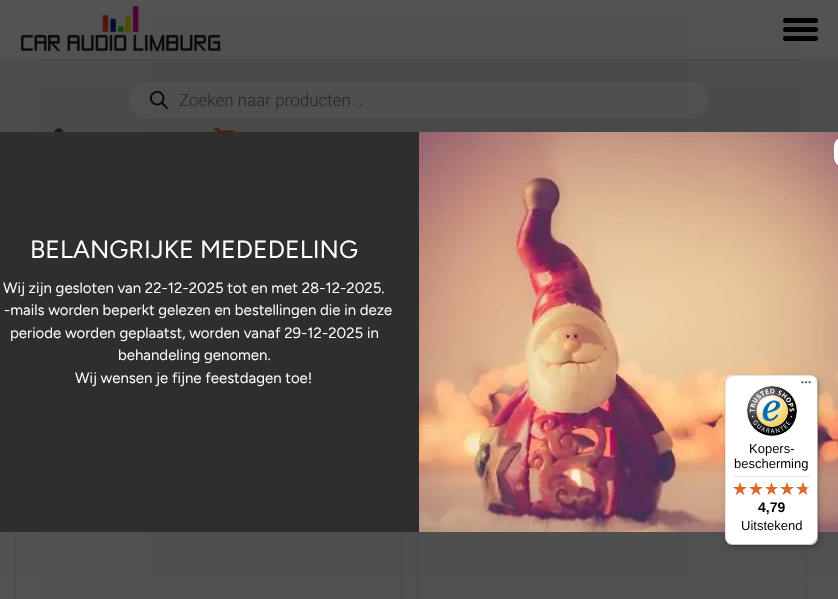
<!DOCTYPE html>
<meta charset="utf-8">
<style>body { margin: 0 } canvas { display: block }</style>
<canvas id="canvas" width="838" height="599"></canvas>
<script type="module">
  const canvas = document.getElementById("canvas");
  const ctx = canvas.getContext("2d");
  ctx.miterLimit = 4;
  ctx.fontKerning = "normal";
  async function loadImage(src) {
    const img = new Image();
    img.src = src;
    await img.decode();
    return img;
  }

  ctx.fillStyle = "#ffffff";
  ctx.fillRect(0, 0, 838, 599);
  ctx.drawImage(await loadImage("img1.png"), 21, 6, 200, 46);
  ctx.fillStyle = "#000000";
  ctx.beginPath();
  ctx.roundRect(783, 18, 35, 5, 2.5);
  ctx.fill();
  ctx.beginPath();
  ctx.roundRect(783, 27, 35, 5, 2.5);
  ctx.fill();
  ctx.beginPath();
  ctx.roundRect(783, 36, 35, 5, 2.5);
  ctx.fill();
  ctx.fillStyle = "#e8eeef";
  ctx.fillRect(0, 59, 838, 73);
  ctx.fillStyle = "#ffffff";
  ctx.beginPath();
  ctx.roundRect(129, 82, 580, 36, 18);
  ctx.fill();
  ctx.drawImage(await loadImage("img2.png"), 150, 91, 18, 18);
  ctx.font = "300 17px Roboto";
  ctx.fillStyle = "#777777";
  ctx.fillText("Zoeken naar producten...", 179, 106);
  ctx.drawImage(await loadImage("img3.png"), 54, 128, 10, 4);
  ctx.drawImage(await loadImage("img4.png"), 214, 128, 21, 4);
  ctx.strokeStyle = "#e2e2e2";
  ctx.strokeRect(15.5, 362.5, 387, 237);
  ctx.strokeRect(418.5, 362.5, 387, 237);
  ctx.fillStyle = "rgba(0, 0, 0, 0.7)";
  ctx.filter = "blur(500px)";
  ctx.beginPath();
  ctx.rect(-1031, -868, 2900, 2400);
  ctx.fill();
  ctx.filter = "none";
  ctx.fillStyle = "#2e2e2e";
  ctx.fillRect(0, 132, 419, 400);
  ctx.drawImage(await loadImage("img5.png"), 419, 132, 419, 400);
  ctx.fillStyle = "#ffffff";
  ctx.beginPath();
  ctx.roundRect(834, 137, 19, 30, 15);
  ctx.fill();
  ctx.font = "25px Figtree";
  ctx.fillText("BELANGRIJKE MEDEDELING", 30, 258);
  ctx.font = "15px Figtree";
  ctx.fillText("Wij zijn gesloten van 22-12-2025 tot en met 28-12-2025.", 3, 293);
  ctx.fillText("-mails worden beperkt gelezen en bestellingen die in deze", 4, 315);
  ctx.fillText("periode worden geplaatst, worden vanaf 29-12-2025 in", 10, 338);
  ctx.fillText("behandeling genomen.", 118, 360);
  ctx.fillText("Wij wensen je fijne feestdagen toe!", 75, 383);
  ctx.fillStyle = "rgba(0, 0, 0, 0.15)";
  ctx.filter = "blur(4px)";
  ctx.beginPath();
  ctx.roundRect(728, 378, 93, 170, 8);
  ctx.fill();
  ctx.filter = "none";
  ctx.filter = "blur(1px)";
  ctx.beginPath();
  ctx.roundRect(726, 376, 93, 170, 8);
  ctx.fill();
  ctx.filter = "none";
  ctx.fillStyle = "#ffffff";
  ctx.beginPath();
  ctx.roundRect(725, 375, 93, 170, 8);
  ctx.fill();
  ctx.fillStyle = "rgba(0, 0, 0, 0.1)";
  ctx.beginPath();
  ctx.moveTo(734, 376);
  ctx.lineTo(811, 376);
  ctx.bezierCurveTo(813, 376, 815, 377, 817, 379);
  ctx.bezierCurveTo(815, 377, 813, 375, 810, 375);
  ctx.lineTo(733, 375);
  ctx.bezierCurveTo(729, 375, 725, 379, 725, 383);
  ctx.lineTo(725, 537);
  ctx.bezierCurveTo(725, 540, 727, 542, 729, 544);
  ctx.bezierCurveTo(727, 542, 726, 540, 726, 538);
  ctx.lineTo(726, 384);
  ctx.bezierCurveTo(726, 380, 730, 376, 734, 376);
  ctx.closePath();
  ctx.fill();
  ctx.fillStyle = "rgba(0, 0, 0, 0.2)";
  ctx.beginPath();
  ctx.moveTo(726, 541);
  ctx.bezierCurveTo(728, 543, 730, 545, 733, 545);
  ctx.lineTo(810, 545);
  ctx.bezierCurveTo(814, 545, 818, 541, 818, 537);
  ctx.lineTo(818, 383);
  ctx.bezierCurveTo(818, 380, 816, 378, 814, 376);
  ctx.bezierCurveTo(816, 378, 817, 380, 817, 382);
  ctx.lineTo(817, 536);
  ctx.bezierCurveTo(817, 540, 813, 544, 809, 544);
  ctx.lineTo(732, 544);
  ctx.bezierCurveTo(730, 544, 728, 543, 726, 541);
  ctx.closePath();
  ctx.fill();
  ctx.fillStyle = "rgba(50, 50, 50, 0.2)";
  ctx.beginPath();
  ctx.moveTo(727, 542);
  ctx.bezierCurveTo(728, 544, 731, 545, 733, 545);
  ctx.lineTo(810, 545);
  ctx.bezierCurveTo(814, 545, 818, 541, 818, 537);
  ctx.lineTo(818, 383);
  ctx.bezierCurveTo(818, 381, 817, 378, 815, 377);
  ctx.bezierCurveTo(816, 378, 817, 380, 817, 382);
  ctx.lineTo(817, 536);
  ctx.bezierCurveTo(817, 541, 814, 544, 809, 544);
  ctx.lineTo(732, 544);
  ctx.bezierCurveTo(730, 544, 728, 543, 727, 542);
  ctx.closePath();
  ctx.fill();
  ctx.drawImage(await loadImage("img6.png"), 801, 381, 10, 3);
  ctx.fillStyle = "rgba(255, 255, 255, 0.3)";
  ctx.beginPath();
  ctx.moveTo(727, 542);
  ctx.bezierCurveTo(728, 544, 731, 545, 733, 545);
  ctx.lineTo(810, 545);
  ctx.bezierCurveTo(814, 545, 818, 541, 818, 537);
  ctx.lineTo(818, 536);
  ctx.bezierCurveTo(818, 541, 814, 544, 810, 544);
  ctx.lineTo(732, 544);
  ctx.bezierCurveTo(730, 544, 728, 543, 727, 542);
  ctx.closePath();
  ctx.fill();
  ctx.drawImage(await loadImage("img7.png"), 747, 386, 50, 50);
  ctx.font = "13px Liberation Sans";
  ctx.fillStyle = "#000000";
  ctx.fillText("Kopers-", 749, 453);
  ctx.fillText("bescherming", 734, 468);
  ctx.fillStyle = "#e5e5e5";
  ctx.fillRect(733, 476, 77, 1);
  ctx.drawImage(await loadImage("img8.png"), 733, 482, 14, 13);
  ctx.drawImage(await loadImage("img8.png"), 749, 482, 14, 13);
  ctx.drawImage(await loadImage("img9.png"), 765, 482, 13, 13);
  ctx.drawImage(await loadImage("img8.png"), 780, 482, 14, 13);
  ctx.drawImage(await loadImage("img8.png"), 796, 482, 14, 13);
  ctx.drawImage(await loadImage("img10.png"), 733, 482, 14, 13);
  ctx.drawImage(await loadImage("img10.png"), 749, 482, 14, 13);
  ctx.drawImage(await loadImage("img11.png"), 765, 482, 13, 13);
  ctx.drawImage(await loadImage("img10.png"), 780, 482, 14, 13);
  ctx.drawImage(await loadImage("img12.png"), 796, 482, 11, 13);
  ctx.font = "bold 14px Liberation Sans";
  ctx.fillStyle = "#000000";
  ctx.fillText("4,79", 758, 512);
  ctx.font = "13px Liberation Sans";
  ctx.fillText("Uitstekend", 741, 530);
</script>
